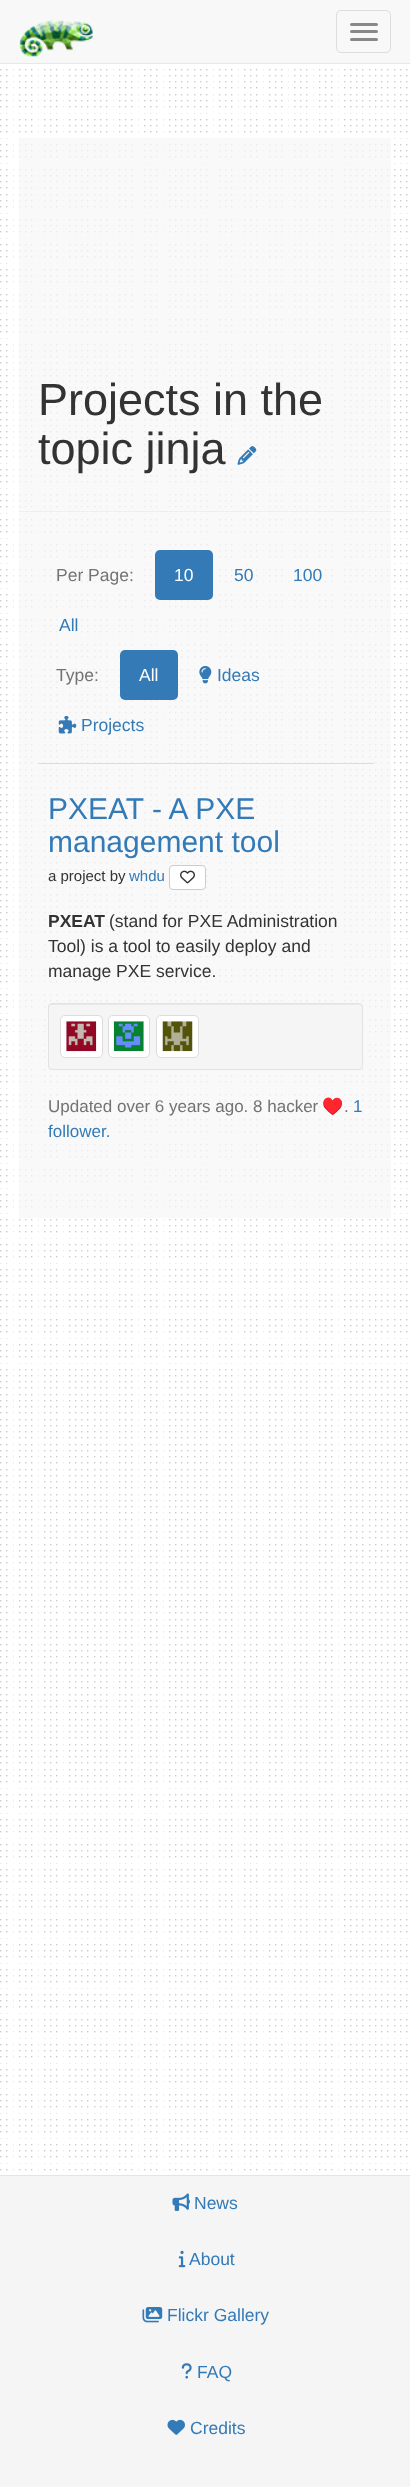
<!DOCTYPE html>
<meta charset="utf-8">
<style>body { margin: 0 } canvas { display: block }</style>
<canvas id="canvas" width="410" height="2487"></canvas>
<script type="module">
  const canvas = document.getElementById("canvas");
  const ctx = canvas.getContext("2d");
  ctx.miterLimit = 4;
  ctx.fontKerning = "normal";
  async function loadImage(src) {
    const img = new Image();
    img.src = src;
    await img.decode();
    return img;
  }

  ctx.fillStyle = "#ffffff";
  ctx.fillRect(0, 0, 410, 2487);
  ctx.drawImage(await loadImage("img1.png"), 0, 64, 408, 2111);
  ctx.fillStyle = "#f8f8f8";
  ctx.fillRect(0, 0, 410, 63);
  ctx.fillStyle = "#e7e7e7";
  ctx.fillRect(0, 63, 410, 1);
  ctx.drawImage(await loadImage("img2.png"), 19, 20, 74, 37);
  ctx.beginPath();
  ctx.roundRect(336.5, 10.5, 54, 42, 4.5);
  ctx.strokeStyle = "#dddddd";
  ctx.stroke();
  ctx.fillStyle = "#888888";
  ctx.beginPath();
  ctx.roundRect(350, 23, 28, 3, 1.5);
  ctx.fill();
  ctx.beginPath();
  ctx.roundRect(350, 30, 28, 3, 1.5);
  ctx.fill();
  ctx.beginPath();
  ctx.roundRect(350, 38, 28, 3, 1.5);
  ctx.fill();
  ctx.fillStyle = "rgba(246, 246, 246, 0.7)";
  ctx.fillRect(19, 138, 372, 1080);
  ctx.font = "45px Liberation Sans";
  ctx.fillStyle = "#333333";
  ctx.fillText("Projects in the", 38, 415);
  ctx.fillText("topic jinja", 38, 464);
  ctx.drawImage(await loadImage("img3.png"), 237, 446, 20, 19);
  ctx.fillStyle = "#eeeeee";
  ctx.fillRect(19, 511, 372, 1);
  ctx.font = "17.5px Liberation Sans";
  ctx.fillStyle = "#737373";
  ctx.fillText("Per Page:", 56, 581);
  ctx.fillStyle = "#337ab7";
  ctx.beginPath();
  ctx.roundRect(155, 550, 58, 50, 5);
  ctx.fill();
  ctx.fillStyle = "#ffffff";
  ctx.fillText("10", 174, 581);
  ctx.fillStyle = "#337ab7";
  ctx.fillText("50", 234, 581);
  ctx.fillText("100", 293, 581);
  ctx.fillText("All", 59, 631);
  ctx.fillStyle = "#737373";
  ctx.fillText("Type:", 56, 681);
  ctx.fillStyle = "#337ab7";
  ctx.beginPath();
  ctx.roundRect(120, 650, 58, 50, 5);
  ctx.fill();
  ctx.fillStyle = "#ffffff";
  ctx.fillText("All", 139, 681);
  ctx.drawImage(await loadImage("img4.png"), 199, 665, 13, 19);
  ctx.fillStyle = "#337ab7";
  ctx.fillText("Ideas", 217, 681);
  ctx.drawImage(await loadImage("img5.png"), 58, 715, 19, 19);
  ctx.fillText("Projects", 81, 731);
  ctx.fillStyle = "#dddddd";
  ctx.fillRect(38, 763, 336, 1);
  ctx.font = "30px Liberation Sans";
  ctx.fillStyle = "#337ab7";
  ctx.fillText("PXEAT - A PXE", 48, 819);
  ctx.fillText("management tool", 48, 852);
  ctx.font = "15px Liberation Sans";
  ctx.fillStyle = "#333333";
  ctx.fillText("a project by", 48, 881);
  ctx.fillStyle = "#337ab7";
  ctx.fillText("whdu", 129, 881);
  ctx.fillStyle = "#ffffff";
  ctx.beginPath();
  ctx.roundRect(169.5, 865.5, 36, 24, 3.5);
  ctx.fill();
  ctx.strokeStyle = "#cccccc";
  ctx.stroke();
  ctx.drawImage(await loadImage("img6.png"), 180, 870, 15, 14);
  ctx.font = "bold 17.5px Liberation Sans";
  ctx.fillStyle = "#333333";
  ctx.fillText("PXEAT", 48, 927);
  ctx.font = "17.5px Liberation Sans";
  ctx.fillText("(stand for PXE Administration", 109, 927);
  ctx.fillText("Tool) is a tool to easily deploy and", 48, 952);
  ctx.fillText("manage PXE service.", 48, 977);
  ctx.fillStyle = "#f5f5f5";
  ctx.beginPath();
  ctx.roundRect(48, 1003, 315, 67, 4);
  ctx.fill();
  ctx.fillStyle = "#e9e9e9";
  ctx.beginPath();
  ctx.moveTo(51, 1005);
  ctx.lineTo(359, 1005);
  ctx.bezierCurveTo(360, 1005, 361, 1006, 361, 1008);
  ctx.lineTo(361, 1006);
  ctx.bezierCurveTo(361, 1005, 360, 1004, 358, 1004);
  ctx.lineTo(52, 1004);
  ctx.bezierCurveTo(50, 1004, 49, 1005, 49, 1006);
  ctx.lineTo(49, 1008);
  ctx.bezierCurveTo(49, 1006, 50, 1005, 51, 1005);
  ctx.closePath();
  ctx.fill();
  ctx.beginPath();
  ctx.roundRect(48.5, 1003.5, 314, 66, 3.5);
  ctx.strokeStyle = "#e3e3e3";
  ctx.stroke();
  ctx.fillStyle = "#ffffff";
  ctx.beginPath();
  ctx.roundRect(60.5, 1015.5, 42, 42, 4.5);
  ctx.fill();
  ctx.strokeStyle = "#dddddd";
  ctx.stroke();
  ctx.drawImage(await loadImage("img7.png"), 66, 1021, 31, 31);
  ctx.beginPath();
  ctx.roundRect(108.5, 1015.5, 41, 42, 4.5);
  ctx.fill();
  ctx.stroke();
  ctx.drawImage(await loadImage("img8.png"), 113, 1021, 31, 31);
  ctx.beginPath();
  ctx.roundRect(156.5, 1015.5, 42, 42, 4.5);
  ctx.fill();
  ctx.stroke();
  ctx.drawImage(await loadImage("img9.png"), 162, 1021, 31, 31);
  ctx.font = "17px Liberation Sans";
  ctx.fillStyle = "#737373";
  ctx.fillText("Updated over 6 years ago. 8 hacker", 48, 1112);
  ctx.font = "17px Noto Color Emoji";
  ctx.fillText("♥️", 322, 1112);
  ctx.font = "17px Liberation Sans";
  ctx.fillText(".", 344, 1112);
  ctx.fillStyle = "#337ab7";
  ctx.fillText("1", 353, 1112);
  ctx.fillText("follower.", 48, 1137);
  ctx.fillStyle = "#f5f5f5";
  ctx.fillRect(0, 2176, 410, 311);
  ctx.fillStyle = "#e5e5e5";
  ctx.fillRect(0, 2175, 410, 1);
  ctx.drawImage(await loadImage("img10.png"), 172, 2193, 18, 18);
  ctx.font = "17.5px Liberation Sans";
  ctx.fillStyle = "#337ab7";
  ctx.fillText("News", 194, 2209);
  ctx.drawImage(await loadImage("img11.png"), 178, 2250, 8, 18);
  ctx.fillText("About", 189, 2265);
  ctx.drawImage(await loadImage("img12.png"), 142, 2307, 21, 16);
  ctx.fillText("Flickr Gallery", 167, 2321);
  ctx.drawImage(await loadImage("img13.png"), 181, 2363, 11, 16);
  ctx.fillText("FAQ", 197, 2378);
  ctx.drawImage(await loadImage("img14.png"), 167, 2419, 18, 16);
  ctx.fillText("Credits", 190, 2434);
</script>
